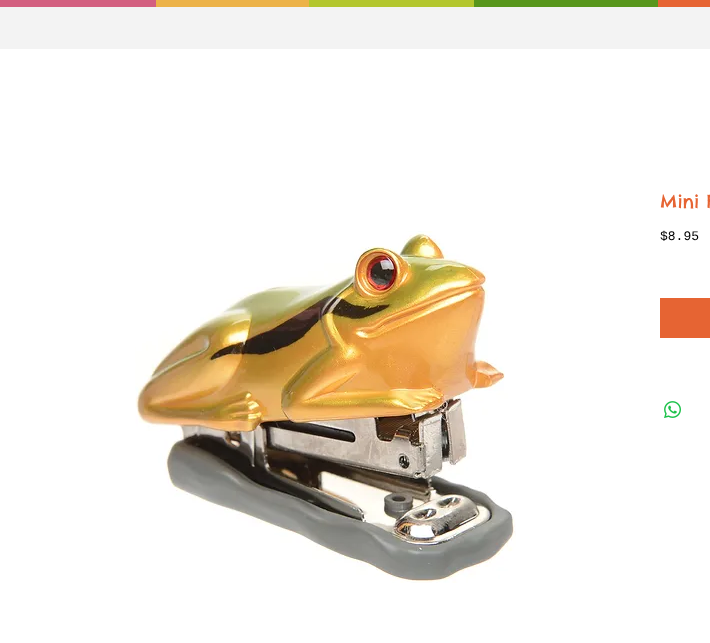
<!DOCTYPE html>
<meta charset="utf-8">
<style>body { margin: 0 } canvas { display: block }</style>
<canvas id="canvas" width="710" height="643"></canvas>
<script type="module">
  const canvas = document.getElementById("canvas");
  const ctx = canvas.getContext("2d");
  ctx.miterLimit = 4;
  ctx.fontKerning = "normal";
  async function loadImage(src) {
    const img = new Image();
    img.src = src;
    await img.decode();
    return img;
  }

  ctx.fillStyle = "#f3f3f3";
  ctx.fillRect(0, 0, 710, 643);
  ctx.drawImage(await loadImage("img1.png"), 0, 0, 710, 7);
  ctx.fillStyle = "#ffffff";
  ctx.fillRect(0, 49, 710, 594);
  ctx.font = "18px Chelsea Market";
  ctx.fillStyle = "#e66433";
  ctx.fillText("Mini F", 660, 208);
  ctx.font = "13px Liberation Mono";
  ctx.fillStyle = "#000000";
  ctx.fillText("$8.95", 660, 240);
  ctx.fillStyle = "#e66433";
  ctx.fillRect(660, 298, 50, 40);
  ctx.drawImage(await loadImage("img2.png"), 664, 401, 17, 17);
  ctx.drawImage(await loadImage("img3.png"), 135, 231, 381, 352);
</script>
